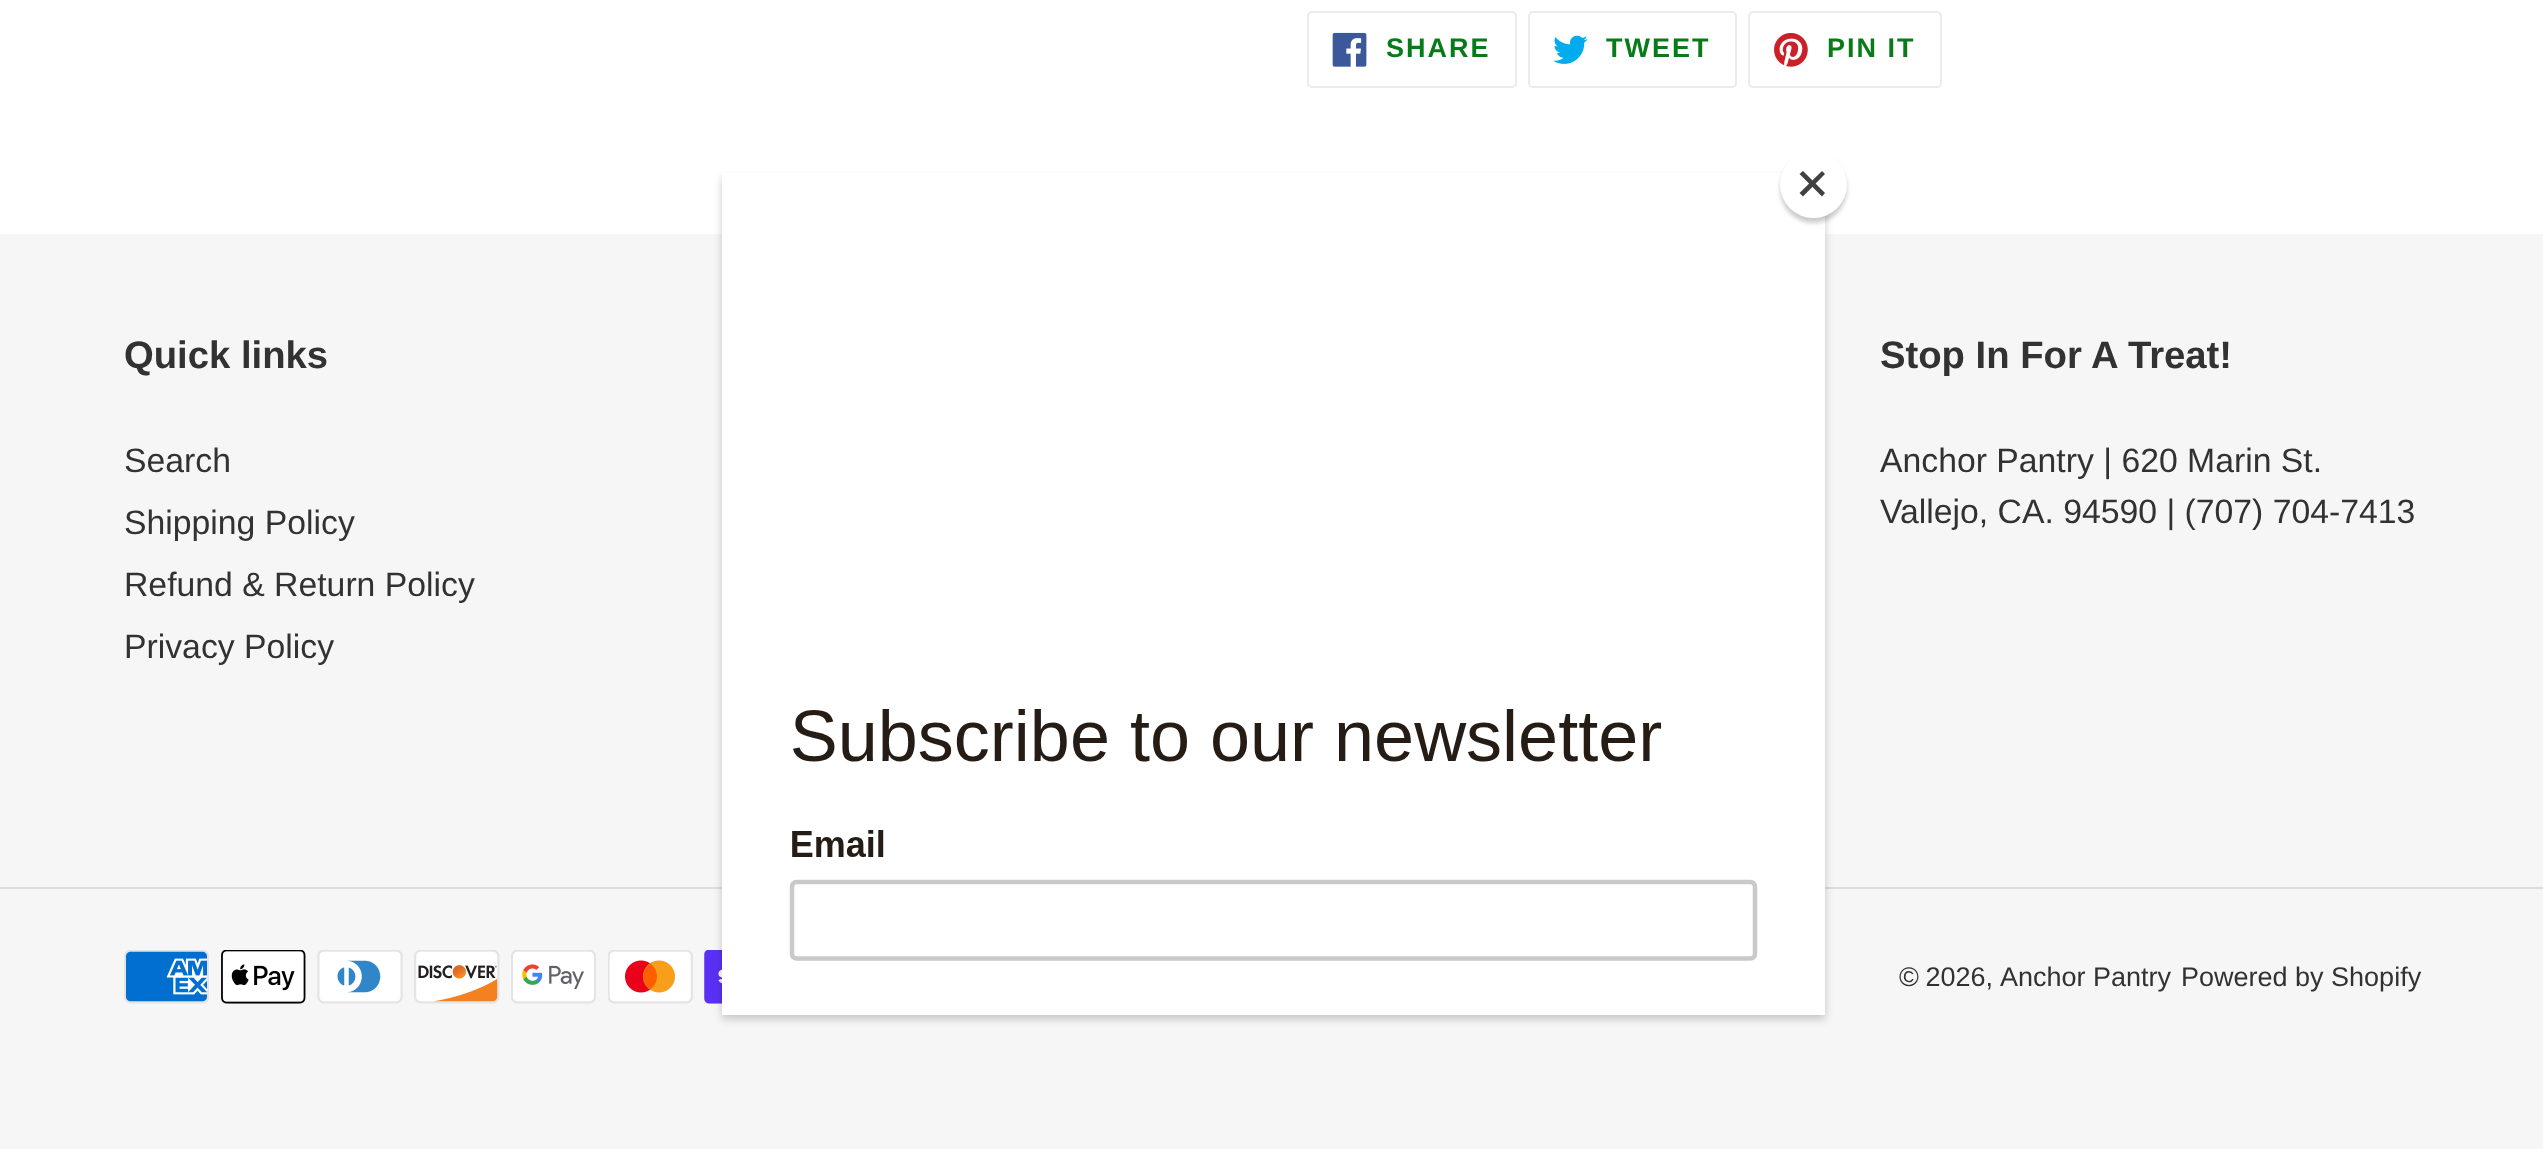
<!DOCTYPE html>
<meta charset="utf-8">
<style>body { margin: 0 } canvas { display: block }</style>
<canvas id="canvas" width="2543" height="1149"></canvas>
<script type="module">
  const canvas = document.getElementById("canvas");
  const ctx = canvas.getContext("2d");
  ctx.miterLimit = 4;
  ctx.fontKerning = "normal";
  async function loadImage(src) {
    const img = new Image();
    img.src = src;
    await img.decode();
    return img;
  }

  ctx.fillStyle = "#ffffff";
  ctx.fillRect(0, 0, 2543, 1149);
  ctx.beginPath();
  ctx.roundRect(1308, 12, 208, 75, 4);
  ctx.strokeStyle = "#ebebeb";
  ctx.lineWidth = 2;
  ctx.stroke();
  ctx.drawImage(await loadImage("img1.png"), 1332, 32, 35, 35);
  ctx.letterSpacing = "2px";
  ctx.font = "bold 27px Liberation Sans";
  ctx.fillStyle = "#087b19";
  ctx.fillText("SHARE", 1386, 57);
  ctx.beginPath();
  ctx.roundRect(1529, 12, 207, 75, 4);
  ctx.stroke();
  ctx.drawImage(await loadImage("img2.png"), 1553, 35, 35, 29);
  ctx.fillText("TWEET", 1606, 57);
  ctx.beginPath();
  ctx.roundRect(1749, 12, 192, 75, 4);
  ctx.stroke();
  ctx.drawImage(await loadImage("img3.png"), 1774, 33, 34, 34);
  ctx.fillText("PIN IT", 1827, 57);
  ctx.fillStyle = "#f6f6f6";
  ctx.fillRect(0, 234, 2543, 915);
  ctx.letterSpacing = "0px";
  ctx.font = "bold 38.25px Liberation Sans";
  ctx.fillStyle = "#333232";
  ctx.fillText("Quick links", 124, 368);
  ctx.font = "33.75px Liberation Sans";
  ctx.fillText("Search", 124, 472);
  ctx.fillText("Shipping Policy", 124, 534);
  ctx.fillText("Refund & Return Policy", 124, 596);
  ctx.fillText("Privacy Policy", 124, 658);
  ctx.font = "bold 38.25px Liberation Sans";
  ctx.fillText("Stop In For A Treat!", 1880, 368);
  ctx.font = "33.75px Liberation Sans";
  ctx.fillText("Anchor Pantry | 620 Marin St.", 1880, 472);
  ctx.fillText("Vallejo, CA. 94590 | (707) 704-7413", 1880, 523);
  ctx.fillStyle = "#dddddd";
  ctx.fillRect(0, 887, 2543, 2);
  ctx.drawImage(await loadImage("img4.png"), 124, 950, 85, 54);
  ctx.drawImage(await loadImage("img5.png"), 221, 950, 85, 54);
  ctx.drawImage(await loadImage("img6.png"), 317, 950, 86, 54);
  ctx.drawImage(await loadImage("img7.png"), 414, 950, 86, 54);
  ctx.drawImage(await loadImage("img8.png"), 511, 950, 85, 54);
  ctx.drawImage(await loadImage("img9.png"), 608, 950, 85, 54);
  ctx.drawImage(await loadImage("img10.png"), 704, 950, 18, 54);
  ctx.wordSpacing = "-1px";
  ctx.font = "27px Liberation Sans";
  ctx.fillStyle = "#333232";
  ctx.fillText("© 2026,", 1899, 986);
  ctx.wordSpacing = "0px";
  ctx.fillText("Anchor Pantry", 2000, 986);
  ctx.fillText("Powered by Shopify", 2181, 986);
  ctx.save();
  ctx.beginPath();
  ctx.moveTo(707, 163);
  ctx.lineTo(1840, 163);
  ctx.lineTo(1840, 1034);
  ctx.lineTo(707, 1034);
  ctx.closePath();
  ctx.moveTo(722, 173);
  ctx.lineTo(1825, 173);
  ctx.lineTo(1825, 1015);
  ctx.lineTo(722, 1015);
  ctx.closePath();
  ctx.clip("evenodd");
  ctx.fillStyle = "rgba(0, 0, 0, 0.2)";
  ctx.filter = "blur(4.5px)";
  ctx.beginPath();
  ctx.rect(722, 178, 1103, 841);
  ctx.fill();
  ctx.filter = "none";
  ctx.restore();
  ctx.drawImage(await loadImage("img11.png"), 722, 179, 1103, 836);
  ctx.fillStyle = "rgba(0, 0, 0, 0.2)";
  ctx.filter = "blur(2px)";
  ctx.beginPath();
  ctx.roundRect(1780, 155, 67, 68, 33.5);
  ctx.fill();
  ctx.filter = "none";
  ctx.fillStyle = "#ffffff";
  ctx.beginPath();
  ctx.arc(1813.5, 184.5, 33.5, 0, Math.PI * 2);
  ctx.fill();
  ctx.fillStyle = "#414141";
  ctx.beginPath();
  ctx.moveTo(1822, 171);
  ctx.lineTo(1825, 174);
  ctx.lineTo(1803, 196.5);
  ctx.lineTo(1799.5, 193);
  ctx.closePath();
  ctx.fill();
  ctx.beginPath();
  ctx.moveTo(1799.5, 174);
  ctx.lineTo(1803, 171);
  ctx.lineTo(1825, 193);
  ctx.lineTo(1822, 196.5);
  ctx.closePath();
  ctx.fill();
</script>
